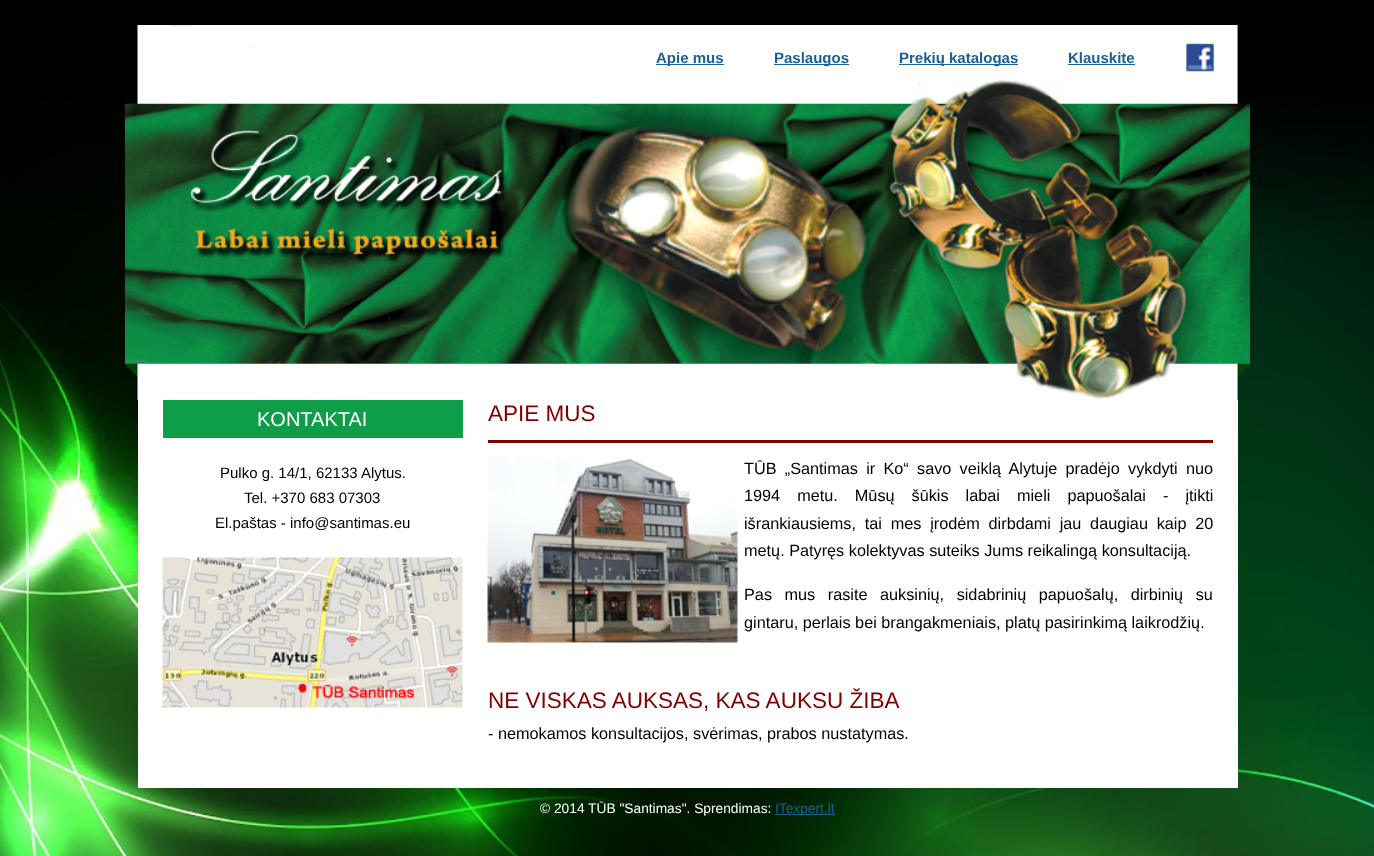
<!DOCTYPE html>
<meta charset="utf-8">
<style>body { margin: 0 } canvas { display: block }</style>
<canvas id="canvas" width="1374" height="856"></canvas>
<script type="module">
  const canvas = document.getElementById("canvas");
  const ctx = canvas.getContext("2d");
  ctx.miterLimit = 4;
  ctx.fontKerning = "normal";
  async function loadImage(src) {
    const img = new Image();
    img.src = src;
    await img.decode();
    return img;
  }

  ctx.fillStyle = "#000000";
  ctx.fillRect(0, 0, 1374, 856);
  ctx.drawImage(await loadImage("img1.png"), 0, 98, 1374, 758);
  ctx.drawImage(await loadImage("img2.png"), 125, 25, 1125, 375);
  ctx.fillStyle = "#186096";
  ctx.fillRect(656, 64, 68, 1);
  ctx.font = "bold 15px Liberation Sans";
  ctx.fillText("Apie mus", 656, 63);
  ctx.fillRect(774, 64, 75, 1);
  ctx.fillText("Paslaugos", 774, 63);
  ctx.fillRect(899, 64, 119, 1);
  ctx.fillText("Prekių katalogas", 899, 63);
  ctx.fillText("Klauskite", 1068, 63);
  ctx.fillRect(1068, 64, 67, 1);
  ctx.drawImage(await loadImage("img3.png"), 1186, 43, 29, 29);
  ctx.fillStyle = "#ffffff";
  ctx.fillRect(138, 400, 1100, 388);
  ctx.fillStyle = "#0e9e49";
  ctx.fillRect(163, 400, 300, 38);
  ctx.font = "20px Liberation Sans";
  ctx.fillStyle = "#ffffff";
  ctx.fillText("KONTAKTAI", 257, 426);
  ctx.font = "15px Liberation Sans";
  ctx.fillStyle = "#000000";
  ctx.fillText("Pulko g. 14/1, 62133 Alytus.", 220, 478);
  ctx.fillText("Tel. +370 683 07303", 244, 503);
  ctx.fillText("El.paštas - info@santimas.eu", 215, 528);
  ctx.drawImage(await loadImage("img4.png"), 162, 557, 301, 151);
  ctx.font = "22.5px Liberation Sans";
  ctx.fillStyle = "#800000";
  ctx.fillText("APIE MUS", 488, 421);
  ctx.fillRect(488, 440, 725, 3);
  ctx.drawImage(await loadImage("img5.png"), 487, 455, 251, 188);
  ctx.wordSpacing = "3.75px";
  ctx.font = "16.25px Liberation Sans";
  ctx.fillStyle = "#000000";
  ctx.fillText("TŪB „Santimas ir Ko“ savo veiklą Alytuje pradėjo vykdyti nuo", 744, 474);
  ctx.wordSpacing = "12.5px";
  ctx.fillText("1994 metu. Mūsų šūkis labai mieli papuošalai - įtikti", 744, 501);
  ctx.wordSpacing = "4.25px";
  ctx.fillText("išrankiausiems, tai mes įrodėm dirbdami jau daugiau kaip 20", 744, 529);
  ctx.wordSpacing = "0px";
  ctx.fillText("metų. Patyręs kolektyvas suteiks Jums reikalingą konsultaciją.", 744, 556);
  ctx.wordSpacing = "8px";
  ctx.fillText("Pas mus rasite auksinių, sidabrinių papuošalų, dirbinių su", 744, 600);
  ctx.wordSpacing = "0px";
  ctx.fillText("gintaru, perlais bei brangakmeniais, platų pasirinkimą laikrodžių.", 744, 628);
  ctx.font = "22.5px Liberation Sans";
  ctx.fillStyle = "#800000";
  ctx.fillText("NE VISKAS AUKSAS, KAS AUKSU ŽIBA", 488, 708);
  ctx.font = "16.25px Liberation Sans";
  ctx.fillStyle = "#000000";
  ctx.fillText("- nemokamos konsultacijos, svėrimas, prabos nustatymas.", 488, 739);
  ctx.font = "13.75px Liberation Sans";
  ctx.fillStyle = "#ffffff";
  ctx.fillText("© 2014 TŪB \"Santimas\". Sprendimas:", 540, 813);
  ctx.fillStyle = "#186096";
  ctx.fillRect(775, 814, 60, 1);
  ctx.fillText("ITexpert.lt", 775, 813);
</script>
